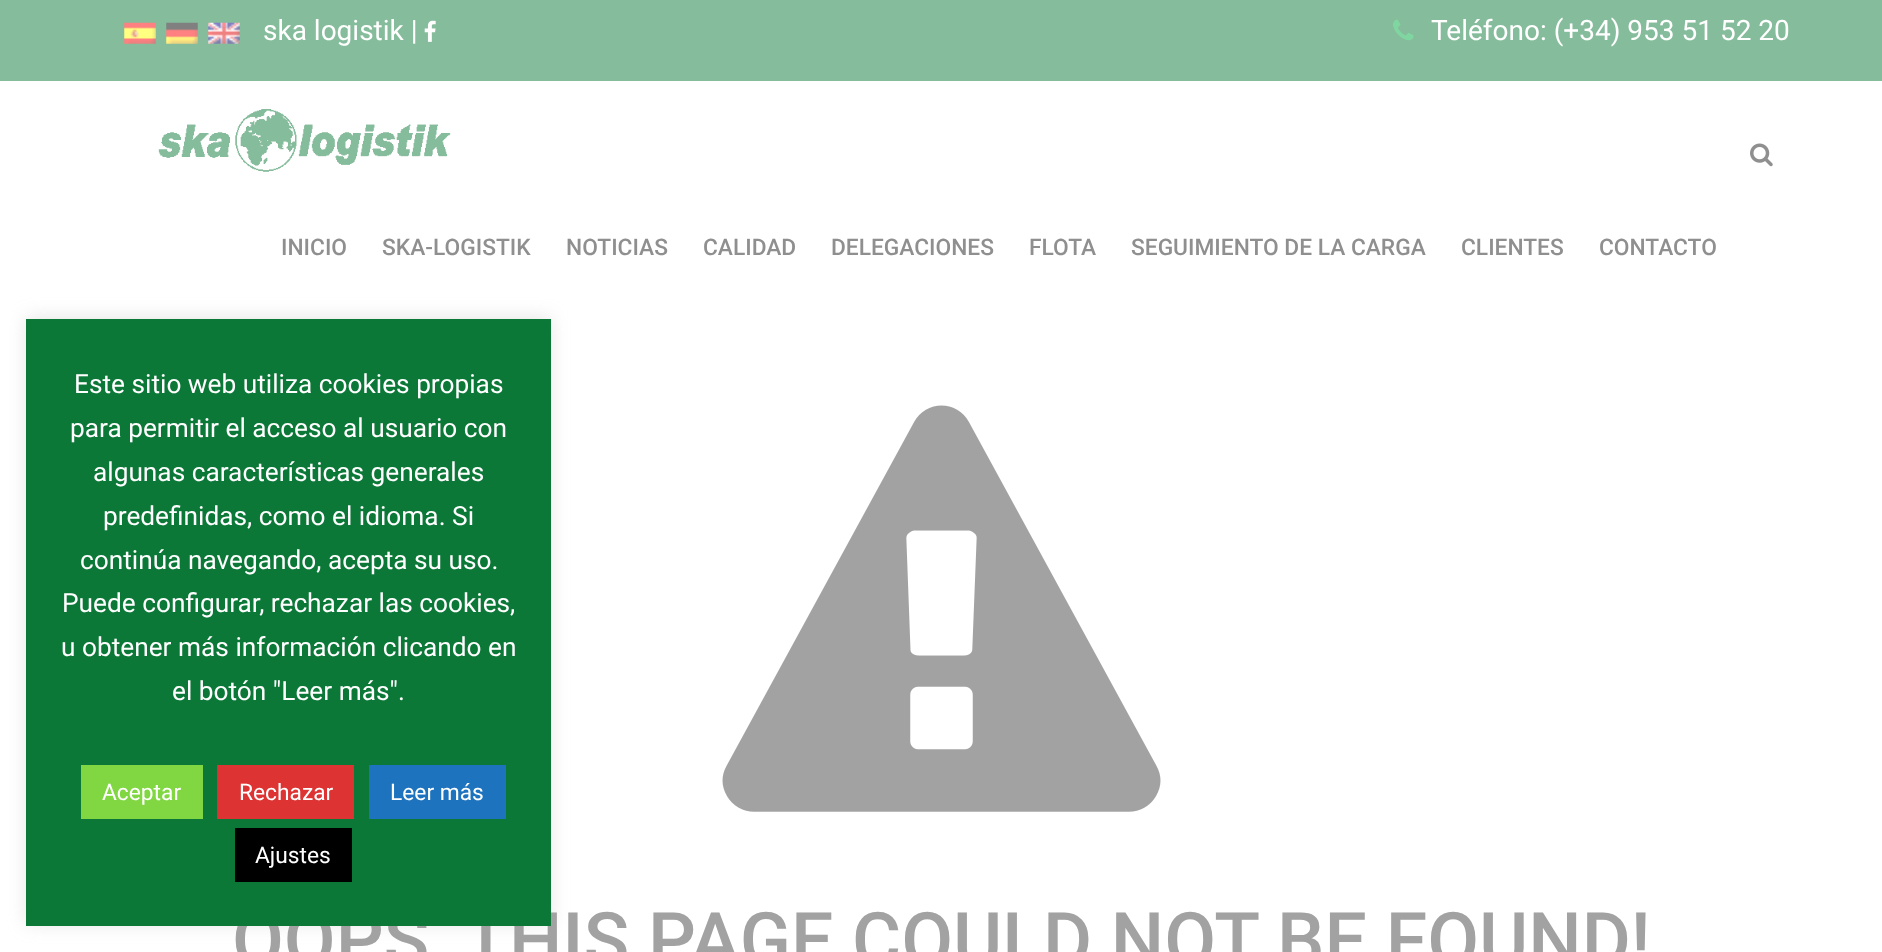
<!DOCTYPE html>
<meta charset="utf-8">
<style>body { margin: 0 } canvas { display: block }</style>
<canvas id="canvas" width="1882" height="952"></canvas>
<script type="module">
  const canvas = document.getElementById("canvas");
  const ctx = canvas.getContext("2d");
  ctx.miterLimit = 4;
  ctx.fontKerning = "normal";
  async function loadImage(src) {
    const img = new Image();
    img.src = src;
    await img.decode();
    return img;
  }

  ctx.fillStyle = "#ffffff";
  ctx.fillRect(0, 0, 1882, 952);
  ctx.fillStyle = "#85bc9b";
  ctx.fillRect(0, 0, 1882, 81);
  ctx.drawImage(await loadImage("img1.png"), 124, 22, 32, 22);
  ctx.drawImage(await loadImage("img2.png"), 166, 22, 32, 22);
  ctx.drawImage(await loadImage("img3.png"), 208, 22, 32, 22);
  ctx.font = "28px Roboto";
  ctx.fillStyle = "#ffffff";
  ctx.fillText("ska logistik |", 263, 40);
  ctx.drawImage(await loadImage("img4.png"), 424, 20, 12, 22);
  ctx.drawImage(await loadImage("img5.png"), 1393, 19, 21, 22);
  ctx.fillText("Teléfono: (+34) 953 51 52 20", 1431, 40);
  ctx.drawImage(await loadImage("img6.png"), 158, 109, 293, 63);
  ctx.drawImage(await loadImage("img7.png"), 1750, 143, 23, 24);
  ctx.font = "500 22.75px Roboto";
  ctx.fillStyle = "#8f8f8f";
  ctx.fillText("INICIO", 281, 255);
  ctx.fillText("SKA-LOGISTIK", 382, 255);
  ctx.fillText("NOTICIAS", 566, 255);
  ctx.fillText("CALIDAD", 703, 255);
  ctx.fillText("DELEGACIONES", 831, 255);
  ctx.fillText("FLOTA", 1029, 255);
  ctx.fillText("SEGUIMIENTO DE LA CARGA", 1131, 255);
  ctx.fillText("CLIENTES", 1461, 255);
  ctx.fillText("CONTACTO", 1599, 255);
  ctx.fillStyle = "rgba(172, 171, 171, 0.3)";
  ctx.filter = "blur(9px)";
  ctx.beginPath();
  ctx.rect(26, 317, 525, 607);
  ctx.fill();
  ctx.filter = "none";
  ctx.font = "500 75.25px Roboto";
  ctx.fillStyle = "#a2a2a2";
  ctx.fillText("OOPS, THIS PAGE COULD NOT BE FOUND!", 232, 966);
  ctx.fillStyle = "#0b7837";
  ctx.fillRect(26, 319, 525, 607);
  ctx.font = "26.25px Roboto";
  ctx.fillStyle = "#ffffff";
  ctx.fillText("Este sitio web utiliza cookies propias", 74, 393);
  ctx.fillText("para permitir el acceso al usuario con", 70, 437);
  ctx.fillText("algunas características generales", 93, 481);
  ctx.fillText("predefinidas, como el idioma. Si", 103, 525);
  ctx.fillText("continúa navegando, acepta su uso.", 80, 569);
  ctx.fillText("Puede configurar, rechazar las cookies,", 62, 612);
  ctx.fillText("u obtener más información clicando en", 61, 656);
  ctx.fillText("el botón \"Leer más\".", 172, 700);
  ctx.fillStyle = "#81d742";
  ctx.fillRect(81, 765, 122, 54);
  ctx.font = "22.75px Roboto";
  ctx.fillStyle = "#ffffff";
  ctx.fillText("Aceptar", 102, 800);
  ctx.fillStyle = "#dd3333";
  ctx.fillRect(217, 765, 137, 54);
  ctx.fillStyle = "#ffffff";
  ctx.fillText("Rechazar", 239, 800);
  ctx.fillStyle = "#1e73be";
  ctx.fillRect(369, 765, 137, 54);
  ctx.fillStyle = "#ffffff";
  ctx.fillText("Leer más", 390, 800);
  ctx.fillStyle = "#000000";
  ctx.fillRect(235, 828, 117, 54);
  ctx.fillStyle = "#ffffff";
  ctx.fillText("Ajustes", 255, 863);
  ctx.drawImage(await loadImage("img8.png"), 722, 405, 439, 407);
</script>
